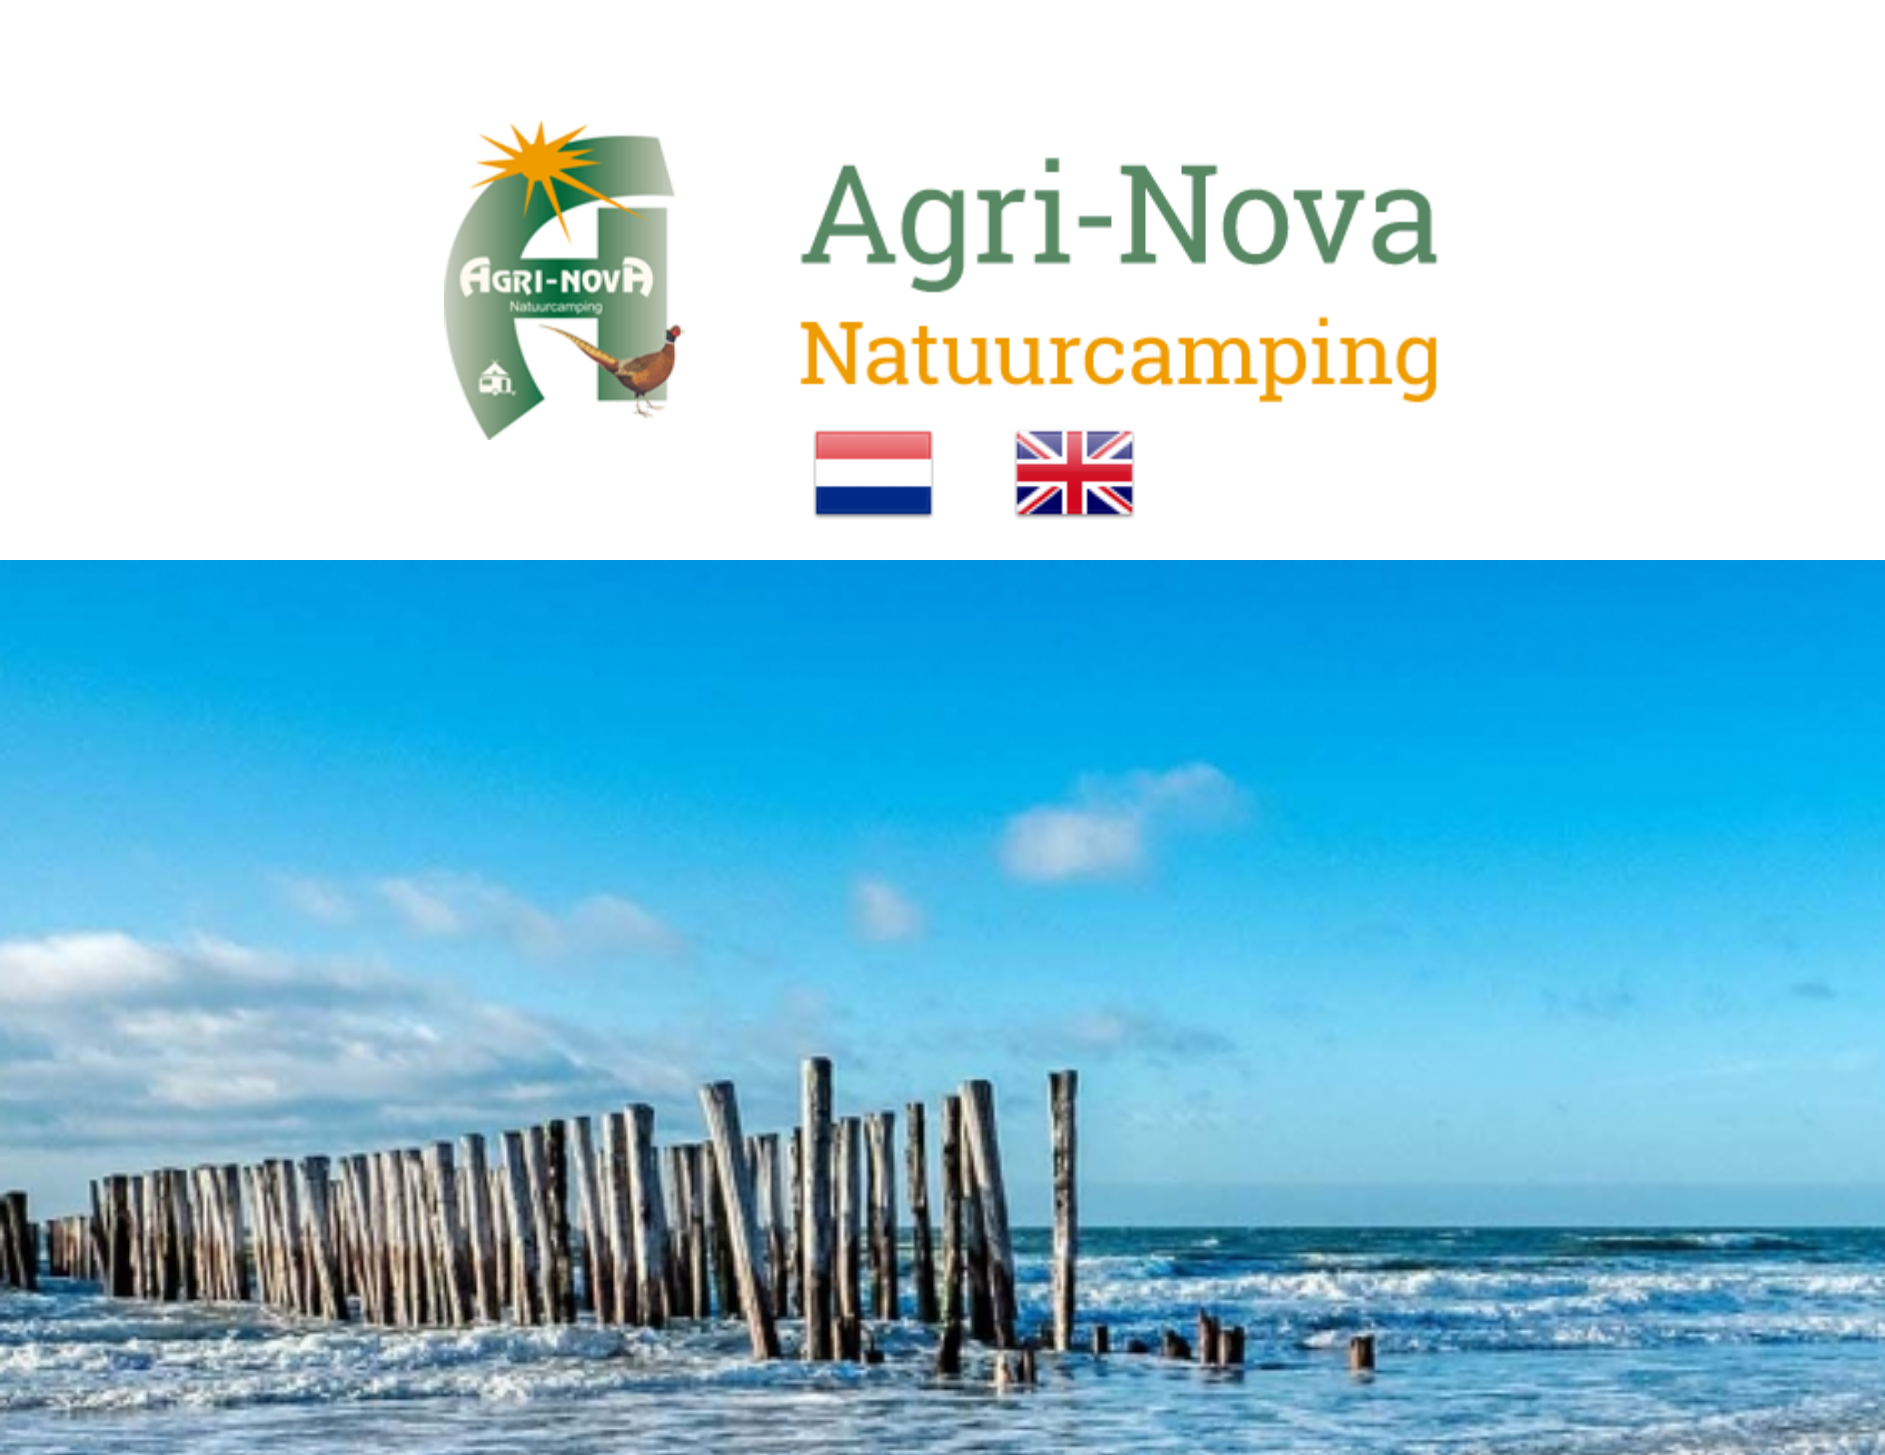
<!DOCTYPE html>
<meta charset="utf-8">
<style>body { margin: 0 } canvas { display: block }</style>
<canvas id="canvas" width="1885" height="1455"></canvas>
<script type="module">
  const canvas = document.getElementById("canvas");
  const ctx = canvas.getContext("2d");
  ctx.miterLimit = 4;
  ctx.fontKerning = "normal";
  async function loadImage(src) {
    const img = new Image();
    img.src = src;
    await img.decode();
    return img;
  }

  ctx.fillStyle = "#ffffff";
  ctx.fillRect(0, 0, 1885, 1455);
  ctx.drawImage(await loadImage("img1.png"), 444, 120, 995, 320);
  ctx.drawImage(await loadImage("img2.png"), 813, 429, 121, 91);
  ctx.drawImage(await loadImage("img3.png"), 1014, 429, 121, 91);
  ctx.drawImage(await loadImage("img4.png"), 0, 560, 1885, 895);
</script>
